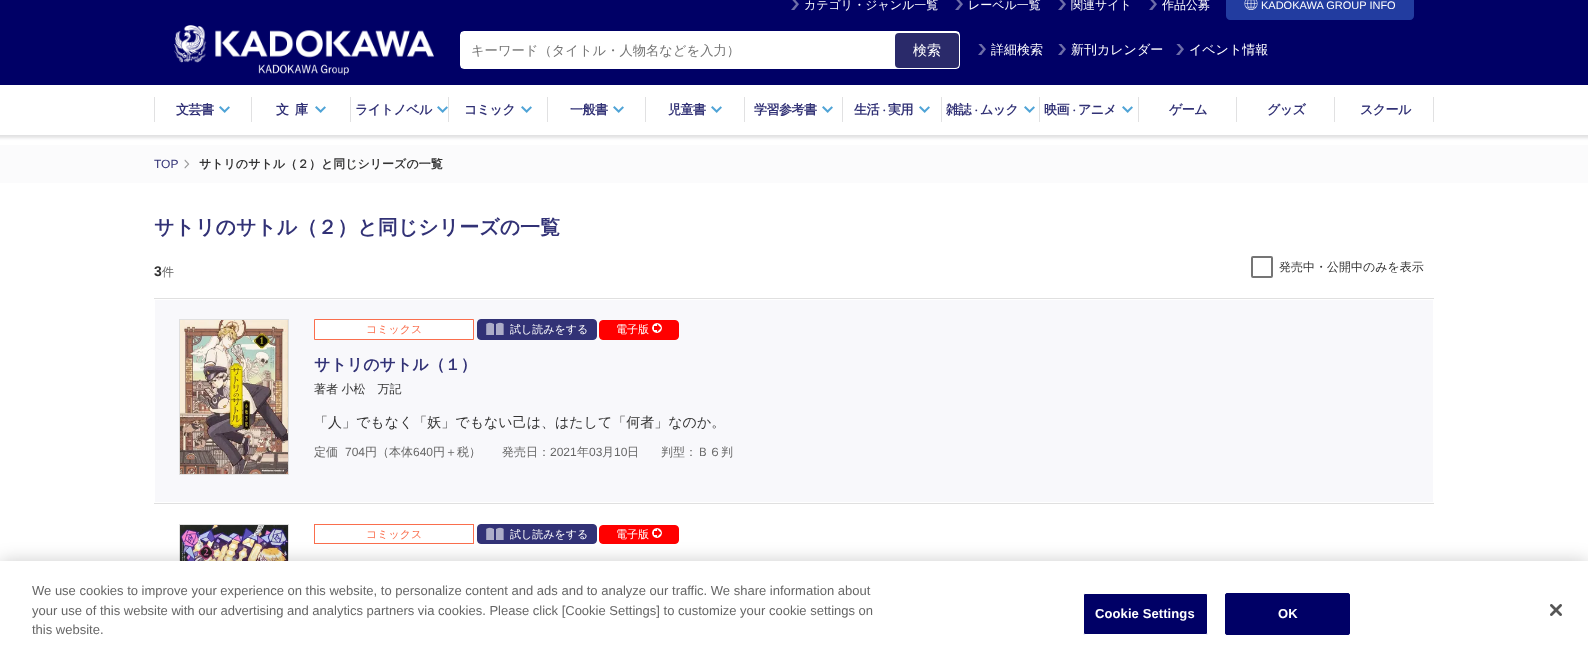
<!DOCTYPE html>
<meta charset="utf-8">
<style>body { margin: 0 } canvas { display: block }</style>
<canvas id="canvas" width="1588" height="663"></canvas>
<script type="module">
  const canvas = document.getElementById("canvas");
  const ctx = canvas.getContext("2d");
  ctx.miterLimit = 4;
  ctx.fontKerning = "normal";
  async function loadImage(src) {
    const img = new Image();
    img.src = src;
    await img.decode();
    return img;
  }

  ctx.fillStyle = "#ffffff";
  ctx.fillRect(0, 0, 1588, 663);
  ctx.fillStyle = "#e1e1e2";
  ctx.filter = "blur(1.5px)";
  ctx.beginPath();
  ctx.rect(-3, -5, 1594, 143);
  ctx.fill();
  ctx.filter = "none";
  ctx.fillStyle = "#000066";
  ctx.fillRect(0, 0, 1588, 85);
  ctx.drawImage(await loadImage("img1.png"), 791, 0, 8, 10);
  ctx.font = "500 12px WenQuanYi Zen Hei";
  ctx.fillStyle = "#ffffff";
  ctx.fillText("カテゴリ・ジャンル一覧", 804, 9);
  ctx.drawImage(await loadImage("img1.png"), 955, 0, 8, 10);
  ctx.fillText("レーベル一覧", 968, 9);
  ctx.drawImage(await loadImage("img1.png"), 1058, 0, 8, 10);
  ctx.fillText("関連サイト", 1071, 9);
  ctx.drawImage(await loadImage("img1.png"), 1149, 0, 8, 10);
  ctx.fillText("作品公募", 1162, 9);
  ctx.fillStyle = "#223ca0";
  ctx.beginPath();
  ctx.moveTo(1226, -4);
  ctx.lineTo(1414, -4);
  ctx.lineTo(1414, 16);
  ctx.bezierCurveTo(1414, 18, 1412, 20, 1410, 20);
  ctx.lineTo(1230, 20);
  ctx.bezierCurveTo(1228, 20, 1226, 18, 1226, 16);
  ctx.closePath();
  ctx.fill();
  ctx.drawImage(await loadImage("img2.png"), 1244, 0, 14, 10);
  ctx.font = "11px Liberation Sans";
  ctx.fillStyle = "#ffffff";
  ctx.fillText("KADOKAWA GROUP INFO", 1261, 9);
  ctx.drawImage(await loadImage("img3.png"), 174, 25, 260, 38);
  ctx.drawImage(await loadImage("img4.png"), 258, 64, 91, 12);
  ctx.beginPath();
  ctx.roundRect(460.5, 31.5, 499, 37, 3.5);
  ctx.strokeStyle = "#ffffff";
  ctx.stroke();
  ctx.fillRect(461, 32, 498, 36);
  ctx.font = "500 13.3px WenQuanYi Zen Hei";
  ctx.fillStyle = "#757575";
  ctx.fillText("キーワード（タイトル・人物名などを入力）", 471, 55);
  ctx.fillStyle = "#2a2a6a";
  ctx.beginPath();
  ctx.roundRect(895, 33, 64, 35, 4);
  ctx.fill();
  ctx.font = "500 14px WenQuanYi Zen Hei";
  ctx.fillStyle = "#ffffff";
  ctx.fillText("検索", 913, 55);
  ctx.drawImage(await loadImage("img5.png"), 978, 44, 8, 11);
  ctx.font = "500 13px WenQuanYi Zen Hei";
  ctx.fillText("詳細検索", 991, 54);
  ctx.drawImage(await loadImage("img5.png"), 1058, 44, 8, 11);
  ctx.fillText("新刊カレンダー", 1071, 54);
  ctx.drawImage(await loadImage("img5.png"), 1176, 44, 8, 11);
  ctx.fillText("イベント情報", 1189, 54);
  ctx.fillRect(0, 85, 1588, 50);
  ctx.fillStyle = "#e1e1e2";
  ctx.fillRect(154, 97, 1, 25);
  ctx.fillRect(251, 97, 1, 25);
  ctx.letterSpacing = "-0.5px";
  ctx.font = "bold 13px WenQuanYi Zen Hei";
  ctx.fillStyle = "#323276";
  ctx.fillText("文芸書", 176, 114);
  ctx.drawImage(await loadImage("img6.png"), 219, 106, 11, 7);
  ctx.fillStyle = "#e1e1e2";
  ctx.fillRect(350, 97, 1, 25);
  ctx.letterSpacing = "6px";
  ctx.fillStyle = "#323276";
  ctx.fillText("文庫", 276, 114);
  ctx.drawImage(await loadImage("img6.png"), 315, 106, 11, 7);
  ctx.fillStyle = "#e1e1e2";
  ctx.fillRect(448, 97, 1, 25);
  ctx.letterSpacing = "-0.5px";
  ctx.fillStyle = "#323276";
  ctx.fillText("ライトノベル", 355, 114);
  ctx.drawImage(await loadImage("img6.png"), 437, 106, 11, 7);
  ctx.fillStyle = "#e1e1e2";
  ctx.fillRect(547, 97, 1, 25);
  ctx.fillStyle = "#323276";
  ctx.fillText("コミック", 464, 114);
  ctx.drawImage(await loadImage("img6.png"), 521, 106, 11, 7);
  ctx.fillStyle = "#e1e1e2";
  ctx.fillRect(645, 97, 1, 25);
  ctx.fillStyle = "#323276";
  ctx.fillText("一般書", 570, 114);
  ctx.drawImage(await loadImage("img6.png"), 613, 106, 11, 7);
  ctx.fillStyle = "#e1e1e2";
  ctx.fillRect(744, 97, 1, 25);
  ctx.fillStyle = "#323276";
  ctx.fillText("児童書", 668, 114);
  ctx.drawImage(await loadImage("img6.png"), 711, 106, 11, 7);
  ctx.fillStyle = "#e1e1e2";
  ctx.fillRect(842, 97, 1, 25);
  ctx.fillStyle = "#323276";
  ctx.fillText("学習参考書", 754, 114);
  ctx.drawImage(await loadImage("img6.png"), 822, 106, 11, 7);
  ctx.fillStyle = "#e1e1e2";
  ctx.fillRect(941, 97, 1, 25);
  ctx.fillStyle = "#323276";
  ctx.fillText("生活", 854, 114);
  ctx.font = "bold 10px WenQuanYi Zen Hei";
  ctx.fillText("・", 879, 114);
  ctx.font = "bold 13px WenQuanYi Zen Hei";
  ctx.fillText("実用", 888, 114);
  ctx.drawImage(await loadImage("img6.png"), 919, 106, 11, 7);
  ctx.fillStyle = "#e1e1e2";
  ctx.fillRect(1039, 97, 1, 25);
  ctx.fillStyle = "#323276";
  ctx.fillText("雑誌", 946, 114);
  ctx.font = "bold 10px WenQuanYi Zen Hei";
  ctx.fillText("・", 971, 114);
  ctx.font = "bold 13px WenQuanYi Zen Hei";
  ctx.fillText("ムック", 980, 114);
  ctx.drawImage(await loadImage("img6.png"), 1024, 106, 11, 7);
  ctx.fillStyle = "#e1e1e2";
  ctx.fillRect(1138, 97, 1, 25);
  ctx.fillStyle = "#323276";
  ctx.fillText("映画", 1044, 114);
  ctx.font = "bold 10px WenQuanYi Zen Hei";
  ctx.fillText("・", 1069, 114);
  ctx.font = "bold 13px WenQuanYi Zen Hei";
  ctx.fillText("アニメ", 1078, 114);
  ctx.drawImage(await loadImage("img6.png"), 1122, 106, 11, 7);
  ctx.fillStyle = "#e1e1e2";
  ctx.fillRect(1236, 97, 1, 25);
  ctx.fillStyle = "#323276";
  ctx.fillText("ゲーム", 1169, 114);
  ctx.fillStyle = "#e1e1e2";
  ctx.fillRect(1334, 97, 1, 25);
  ctx.fillStyle = "#323276";
  ctx.fillText("グッズ", 1267, 114);
  ctx.fillStyle = "#e1e1e2";
  ctx.fillRect(1433, 97, 1, 25);
  ctx.fillStyle = "#323276";
  ctx.fillText("スクール", 1360, 114);
  ctx.fillStyle = "#fbfbfc";
  ctx.fillRect(0, 145, 1588, 38);
  ctx.letterSpacing = "0px";
  ctx.font = "12px Liberation Sans";
  ctx.fillStyle = "#323276";
  ctx.fillText("TOP", 154, 168);
  ctx.drawImage(await loadImage("img7.png"), 184, 159, 6, 10);
  ctx.font = "bold 12px WenQuanYi Zen Hei";
  ctx.fillStyle = "#333333";
  ctx.fillText("サトリのサトル（２）と同じシリーズの一覧", 199, 168);
  ctx.font = "bold 20px WenQuanYi Zen Hei";
  ctx.fillStyle = "#323276";
  ctx.fillText("サトリのサトル（２）と同じシリーズの一覧", 154, 234);
  ctx.font = "bold 14px Liberation Sans";
  ctx.fillStyle = "#333333";
  ctx.fillText("3", 154, 276);
  ctx.font = "500 12px WenQuanYi Zen Hei";
  ctx.fillStyle = "#666666";
  ctx.fillText("件", 162, 276);
  ctx.beginPath();
  ctx.roundRect(1252, 257, 20, 20, 1);
  ctx.strokeStyle = "#757575";
  ctx.lineWidth = 2;
  ctx.stroke();
  ctx.fillStyle = "#333333";
  ctx.fillText("発売中・公開中のみを表示", 1279, 271);
  ctx.fillStyle = "#f8f8fb";
  ctx.fillRect(155, 300, 1278, 202);
  ctx.fillStyle = "#e0e0e0";
  ctx.fillRect(154, 298, 1280, 1);
  ctx.fillRect(154, 503, 1280, 1);
  ctx.strokeStyle = "#e0e0e0";
  ctx.lineWidth = 1;
  ctx.strokeRect(179.5, 319.5, 109, 155);
  ctx.drawImage(await loadImage("img8.png"), 180, 320, 108, 154);
  ctx.fillStyle = "#ffffff";
  ctx.beginPath();
  ctx.rect(314.5, 319.5, 159, 20);
  ctx.fill();
  ctx.strokeStyle = "#fa6e4d";
  ctx.stroke();
  ctx.font = "500 11px WenQuanYi Zen Hei";
  ctx.fillStyle = "#fa6e4d";
  ctx.fillText("コミックス", 366, 333);
  ctx.fillStyle = "#323276";
  ctx.beginPath();
  ctx.roundRect(477.5, 319.5, 119, 20, 3.5);
  ctx.fill();
  ctx.strokeStyle = "#323276";
  ctx.stroke();
  ctx.drawImage(await loadImage("img9.png"), 486, 322, 18, 13);
  ctx.fillStyle = "#ffffff";
  ctx.fillText("試し読みをする", 510, 333);
  ctx.fillStyle = "#ff0000";
  ctx.beginPath();
  ctx.roundRect(599.5, 320.5, 79, 19, 3.5);
  ctx.fill();
  ctx.strokeStyle = "#ff0000";
  ctx.stroke();
  ctx.fillStyle = "#ffffff";
  ctx.fillText("電子版", 616, 333);
  ctx.drawImage(await loadImage("img10.png"), 652, 323, 10, 10);
  ctx.font = "bold 16px WenQuanYi Zen Hei";
  ctx.fillStyle = "#323276";
  ctx.fillText("サトリのサトル（１）", 314, 370);
  ctx.font = "500 12px WenQuanYi Zen Hei";
  ctx.fillStyle = "#333333";
  ctx.fillText("著者 小松　万記", 314, 393);
  ctx.font = "500 14px WenQuanYi Zen Hei";
  ctx.fillText("「人」でもなく「妖」でもない己は、はたして「何者」なのか。", 314, 427);
  ctx.font = "500 12px WenQuanYi Zen Hei";
  ctx.fillStyle = "#666666";
  ctx.fillText("定価", 314, 456);
  ctx.font = "12px Liberation Sans";
  ctx.fillText("704", 345, 456);
  ctx.font = "500 12px WenQuanYi Zen Hei";
  ctx.fillText("円（本体", 365, 456);
  ctx.font = "12px Liberation Sans";
  ctx.fillText("640", 413, 456);
  ctx.font = "500 12px WenQuanYi Zen Hei";
  ctx.fillText("円＋税）", 433, 456);
  ctx.fillText("発売日：", 502, 456);
  ctx.font = "12px Liberation Sans";
  ctx.fillText("2021", 550, 456);
  ctx.font = "500 12px WenQuanYi Zen Hei";
  ctx.fillText("年", 577, 456);
  ctx.font = "12px Liberation Sans";
  ctx.fillText("03", 589, 456);
  ctx.font = "500 12px WenQuanYi Zen Hei";
  ctx.fillText("月", 602, 456);
  ctx.font = "12px Liberation Sans";
  ctx.fillText("10", 614, 456);
  ctx.font = "500 12px WenQuanYi Zen Hei";
  ctx.fillText("日", 627, 456);
  ctx.fillText("判型：Ｂ６判", 661, 456);
  ctx.strokeStyle = "#e0e0e0";
  ctx.strokeRect(179.5, 524.5, 109, 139);
  ctx.drawImage(await loadImage("img11.png"), 180, 525, 108, 36);
  ctx.strokeStyle = "#fa6e4d";
  ctx.strokeRect(314.5, 524.5, 159, 19);
  ctx.font = "500 11px WenQuanYi Zen Hei";
  ctx.fillStyle = "#fa6e4d";
  ctx.fillText("コミックス", 366, 538);
  ctx.fillStyle = "#323276";
  ctx.beginPath();
  ctx.roundRect(477.5, 524.5, 119, 19, 3.5);
  ctx.fill();
  ctx.strokeStyle = "#323276";
  ctx.stroke();
  ctx.drawImage(await loadImage("img9.png"), 486, 527, 18, 13);
  ctx.fillStyle = "#ffffff";
  ctx.fillText("試し読みをする", 510, 538);
  ctx.fillStyle = "#ff0000";
  ctx.beginPath();
  ctx.roundRect(599.5, 525.5, 79, 18, 3.5);
  ctx.fill();
  ctx.strokeStyle = "#ff0000";
  ctx.stroke();
  ctx.fillStyle = "#ffffff";
  ctx.fillText("電子版", 616, 538);
  ctx.drawImage(await loadImage("img10.png"), 652, 528, 10, 10);
  ctx.fillStyle = "rgba(0, 0, 0, 0.2)";
  ctx.filter = "blur(9px)";
  ctx.beginPath();
  ctx.rect(0, 561, 1588, 102);
  ctx.fill();
  ctx.filter = "none";
  ctx.fillStyle = "#ffffff";
  ctx.fillRect(0, 561, 1588, 102);
  ctx.font = "13px Liberation Sans";
  ctx.fillStyle = "#666666";
  ctx.fillText("We use cookies to improve your experience on this website, to personalize content and ads and to analyze our traffic. We share information about", 32, 595);
  ctx.fillText("your use of this website with our advertising and analytics partners via cookies. Please click [Cookie Settings] to customize your cookie settings on", 32, 615);
  ctx.fillText("this website.", 32, 634);
  ctx.fillStyle = "#000066";
  ctx.beginPath();
  ctx.roundRect(1083.5, 593.5, 124, 41, 1.5);
  ctx.fill();
  ctx.strokeStyle = "#ffffff";
  ctx.stroke();
  ctx.letterSpacing = "0.1px";
  ctx.font = "bold 13px Liberation Sans";
  ctx.fillStyle = "#ffffff";
  ctx.fillText("Cookie Settings", 1095, 618);
  ctx.fillStyle = "#000066";
  ctx.beginPath();
  ctx.roundRect(1225.5, 593.5, 124, 41, 1.5);
  ctx.fill();
  ctx.strokeStyle = "#000066";
  ctx.stroke();
  ctx.fillStyle = "#ffffff";
  ctx.fillText("OK", 1278, 618);
  ctx.drawImage(await loadImage("img12.png"), 1550, 604, 12, 12);
</script>
